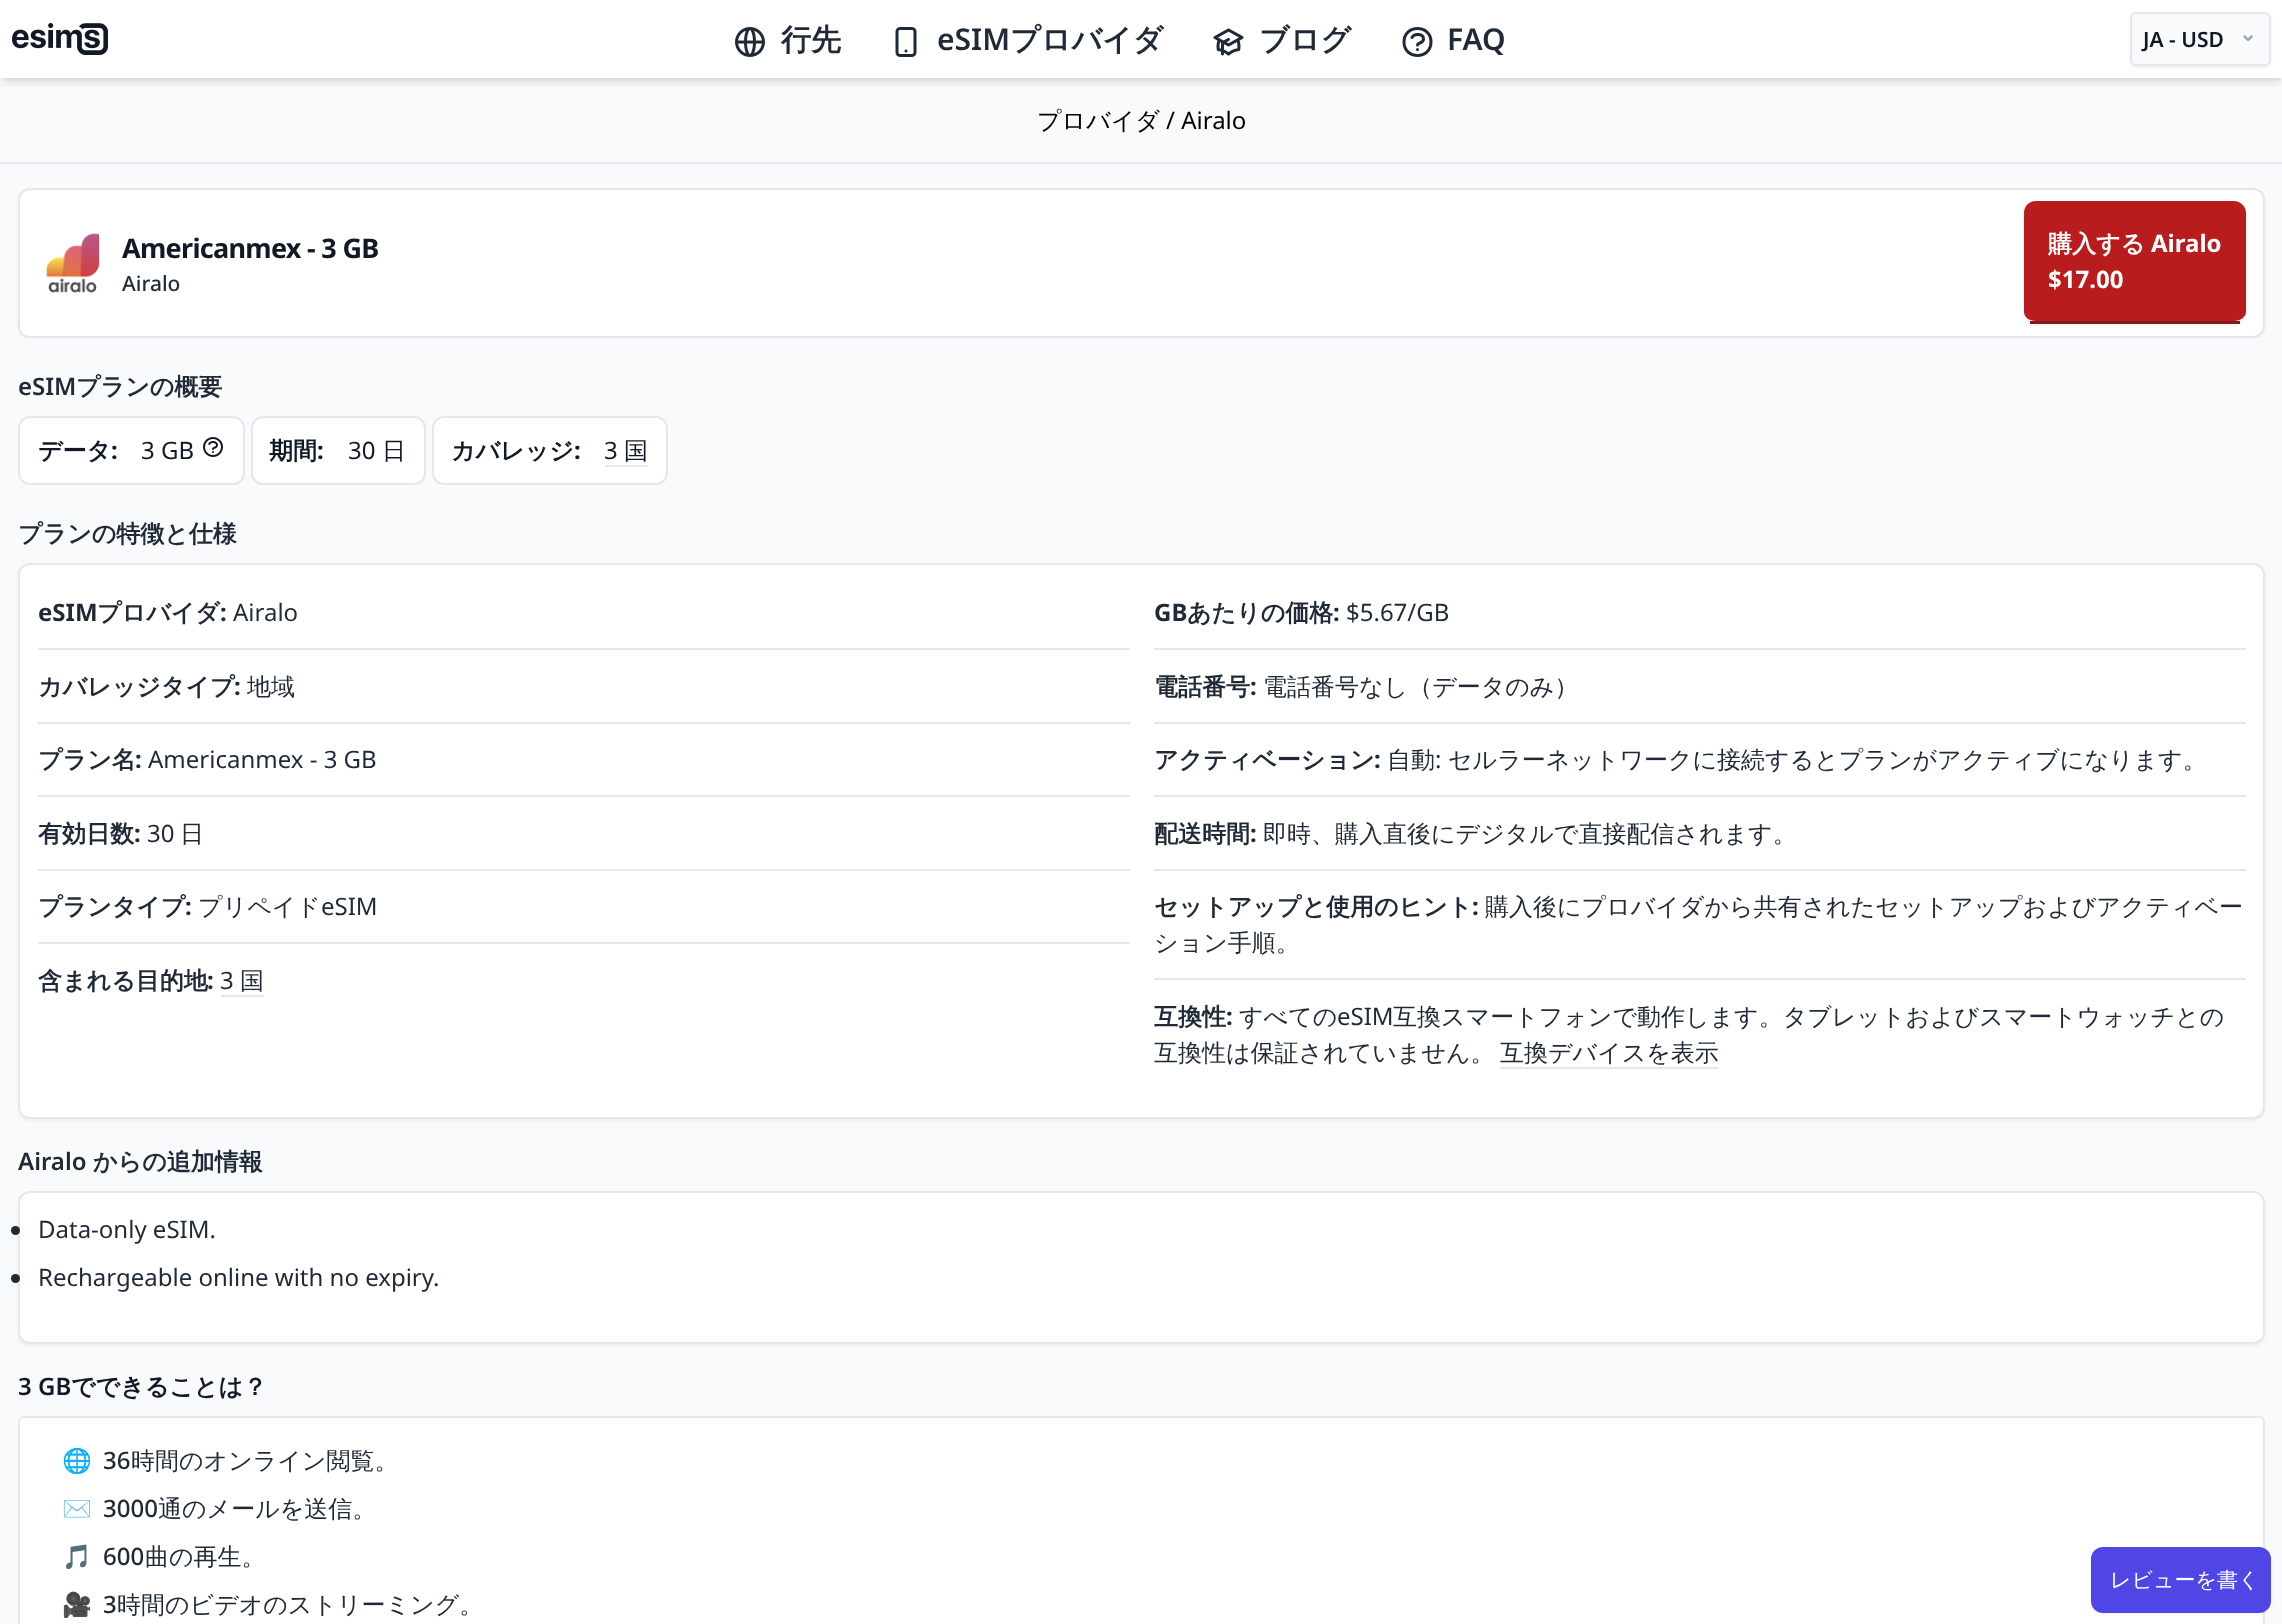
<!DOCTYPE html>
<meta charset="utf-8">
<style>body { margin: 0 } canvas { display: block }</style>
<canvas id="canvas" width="2282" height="1624"></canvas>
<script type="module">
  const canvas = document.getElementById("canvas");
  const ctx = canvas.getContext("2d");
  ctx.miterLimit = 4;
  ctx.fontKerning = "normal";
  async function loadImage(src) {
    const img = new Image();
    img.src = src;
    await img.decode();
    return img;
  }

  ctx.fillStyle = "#ffffff";
  ctx.fillRect(0, 0, 2282, 1624);
  ctx.fillStyle = "#f9fafb";
  ctx.fillRect(0, 78, 2282, 260);
  ctx.save();
  ctx.beginPath();
  ctx.rect(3, 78, 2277, 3);
  ctx.clip();
  ctx.fillStyle = "rgba(0, 0, 0, 0.1)";
  ctx.filter = "blur(3px)";
  ctx.beginPath();
  ctx.rect(3, 6, 2277, 72);
  ctx.fill();
  ctx.filter = "none";
  ctx.restore();
  ctx.save();
  ctx.beginPath();
  ctx.rect(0, 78, 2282, 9);
  ctx.clip();
  ctx.fillStyle = "rgba(0, 0, 0, 0.1)";
  ctx.filter = "blur(4.5px)";
  ctx.beginPath();
  ctx.rect(2, 8, 2280, 75);
  ctx.fill();
  ctx.filter = "none";
  ctx.restore();
  ctx.drawImage(await loadImage("img1.png"), 12, 23, 96, 32);
  ctx.drawImage(await loadImage("img2.png"), 735, 27, 30, 30);
  ctx.font = "bold 30px WenQuanYi Zen Hei";
  ctx.fillStyle = "#1f2937";
  ctx.fillText("行先", 781, 50);
  ctx.drawImage(await loadImage("img3.png"), 895, 27, 22, 30);
  ctx.font = "600 30px Noto Sans";
  ctx.fillText("eSIM", 937, 50);
  ctx.font = "bold 30px WenQuanYi Zen Hei";
  ctx.fillText("プロバイダ", 1010, 50);
  ctx.drawImage(await loadImage("img4.png"), 1213, 28, 31, 28);
  ctx.fillText("ブログ", 1259, 50);
  ctx.font = "600 30px Noto Sans";
  ctx.fillText("FAQ", 1447, 50);
  ctx.beginPath();
  ctx.moveTo(1412, 37.5);
  ctx.bezierCurveTo(1414, 33, 1423.5, 33.5, 1423.5, 39);
  ctx.bezierCurveTo(1423.5, 43.5, 1417.5, 42.5, 1417.5, 45);
  ctx.moveTo(1417.5, 49.5);
  ctx.lineTo(1417.5, 49.5);
  ctx.moveTo(1431, 42);
  ctx.bezierCurveTo(1431, 60, 1404, 60, 1404, 42);
  ctx.bezierCurveTo(1404, 24, 1431, 24, 1431, 42);
  ctx.closePath();
  ctx.strokeStyle = "#1f2937";
  ctx.lineWidth = 3;
  ctx.lineCap = "round";
  ctx.lineJoin = "round";
  ctx.stroke();
  ctx.fillStyle = "rgba(0, 0, 0, 0.05)";
  ctx.filter = "blur(1.5px)";
  ctx.beginPath();
  ctx.roundRect(2130, 14, 141, 54, 6);
  ctx.fill();
  ctx.filter = "none";
  ctx.fillStyle = "#f9fafb";
  ctx.beginPath();
  ctx.roundRect(2131, 13, 139, 52, 5);
  ctx.fill();
  ctx.strokeStyle = "#e5e7eb";
  ctx.lineWidth = 2;
  ctx.lineJoin = "miter";
  ctx.stroke();
  ctx.font = "600 21px Noto Sans";
  ctx.fillStyle = "#111827";
  ctx.fillText("JA - USD", 2143, 47);
  ctx.letterSpacing = "4px";
  ctx.font = "bold 21px DejaVu Sans";
  ctx.fillStyle = "#9ca3af";
  ctx.fillText("⌄", 2239, 41);
  ctx.fillStyle = "rgba(0, 0, 0, 0.05)";
  ctx.filter = "blur(1.5px)";
  ctx.beginPath();
  ctx.roundRect(18, 189, 2247, 150, 12);
  ctx.fill();
  ctx.filter = "none";
  ctx.fillStyle = "#f9fafb";
  ctx.fillRect(0, 338, 2282, 1286);
  ctx.fillStyle = "#ffffff";
  ctx.beginPath();
  ctx.roundRect(19, 1417, 2245, 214, 5);
  ctx.fill();
  ctx.stroke();
  ctx.fillStyle = "rgba(0, 0, 0, 0.05)";
  ctx.filter = "blur(1.5px)";
  ctx.beginPath();
  ctx.roundRect(2091, 1548, 180, 66, 12);
  ctx.fill();
  ctx.filter = "none";
  ctx.fillStyle = "#4f46e5";
  ctx.beginPath();
  ctx.roundRect(2091, 1547, 180, 66, 12);
  ctx.fill();
  ctx.letterSpacing = "0px";
  ctx.font = "500 21px WenQuanYi Zen Hei";
  ctx.fillStyle = "#ffffff";
  ctx.fillText("レビューを書く", 2110, 1587);
  ctx.fillStyle = "#e5e7eb";
  ctx.fillRect(0, 162, 2282, 2);
  ctx.font = "500 24px WenQuanYi Zen Hei";
  ctx.fillStyle = "#000000";
  ctx.fillText("プロバイダ", 1037, 129);
  ctx.font = "24px Noto Sans";
  ctx.fillText("/ Airalo", 1166, 129);
  ctx.fillStyle = "#ffffff";
  ctx.beginPath();
  ctx.roundRect(19, 189, 2245, 148, 11);
  ctx.fill();
  ctx.stroke();
  ctx.drawImage(await loadImage("img5.png"), 46, 233, 54, 60);
  ctx.letterSpacing = "-0.7px";
  ctx.font = "bold 27px Noto Sans";
  ctx.fillStyle = "#111827";
  ctx.fillText("Americanmex - 3 GB", 122, 258);
  ctx.letterSpacing = "0px";
  ctx.font = "500 21px Noto Sans";
  ctx.fillStyle = "#1f2937";
  ctx.fillText("Airalo", 122, 291);
  ctx.fillStyle = "rgba(0, 0, 0, 0.05)";
  ctx.filter = "blur(1.5px)";
  ctx.beginPath();
  ctx.roundRect(2024, 203, 222, 123, 12);
  ctx.fill();
  ctx.filter = "none";
  ctx.fillStyle = "#b91c1c";
  ctx.beginPath();
  ctx.moveTo(2036, 201);
  ctx.lineTo(2234, 201);
  ctx.bezierCurveTo(2240, 201, 2246, 206, 2246, 213);
  ctx.lineTo(2246, 312);
  ctx.bezierCurveTo(2246, 317, 2240, 321, 2234, 321);
  ctx.lineTo(2036, 321);
  ctx.bezierCurveTo(2029, 321, 2024, 317, 2024, 312);
  ctx.lineTo(2024, 213);
  ctx.bezierCurveTo(2024, 206, 2029, 201, 2036, 201);
  ctx.closePath();
  ctx.fill();
  ctx.fillStyle = "#7f1d1d";
  ctx.fillRect(2030, 321, 210, 3);
  ctx.font = "bold 24px WenQuanYi Zen Hei";
  ctx.fillStyle = "#ffffff";
  ctx.fillText("購入する", 2048, 252);
  ctx.font = "bold 24px Noto Sans";
  ctx.fillText("Airalo", 2151, 252);
  ctx.fillText("$17.00", 2048, 288);
  ctx.font = "600 24px Noto Sans";
  ctx.fillStyle = "#1f2937";
  ctx.fillText("eSIM", 18, 395);
  ctx.font = "bold 24px WenQuanYi Zen Hei";
  ctx.fillText("プランの概要", 76, 395);
  ctx.fillStyle = "#ffffff";
  ctx.beginPath();
  ctx.roundRect(19, 417, 225, 67, 11);
  ctx.fill();
  ctx.stroke();
  ctx.fillStyle = "#111827";
  ctx.fillText("データ", 38, 459);
  ctx.font = "bold 24px Noto Sans";
  ctx.fillText(":", 111, 459);
  ctx.font = "24px Noto Sans";
  ctx.fillText("3 GB", 141, 459);
  ctx.drawImage(await loadImage("img6.png"), 203, 437, 20, 20);
  ctx.fillStyle = "#ffffff";
  ctx.beginPath();
  ctx.roundRect(252, 417, 173, 67, 11);
  ctx.fill();
  ctx.stroke();
  ctx.font = "bold 24px WenQuanYi Zen Hei";
  ctx.fillStyle = "#111827";
  ctx.fillText("期間", 269, 459);
  ctx.font = "bold 24px Noto Sans";
  ctx.fillText(":", 317, 459);
  ctx.font = "24px Noto Sans";
  ctx.fillText("30", 348, 459);
  ctx.font = "500 24px WenQuanYi Zen Hei";
  ctx.fillText("日", 382, 459);
  ctx.fillStyle = "#ffffff";
  ctx.beginPath();
  ctx.roundRect(433, 417, 234, 67, 11);
  ctx.fill();
  ctx.stroke();
  ctx.font = "bold 24px WenQuanYi Zen Hei";
  ctx.fillStyle = "#111827";
  ctx.fillText("カバレッジ", 451, 459);
  ctx.font = "bold 24px Noto Sans";
  ctx.fillText(":", 574, 459);
  ctx.font = "24px Noto Sans";
  ctx.fillText("3", 604, 459);
  ctx.font = "500 24px WenQuanYi Zen Hei";
  ctx.fillText("国", 624, 459);
  ctx.fillStyle = "#e5e7eb";
  ctx.fillRect(605, 465, 43, 2);
  ctx.font = "bold 24px WenQuanYi Zen Hei";
  ctx.fillStyle = "#1f2937";
  ctx.fillText("プランの特徴と仕様", 18, 542);
  ctx.fillStyle = "rgba(0, 0, 0, 0.05)";
  ctx.filter = "blur(1.5px)";
  ctx.beginPath();
  ctx.roundRect(18, 564, 2247, 557, 12);
  ctx.fill();
  ctx.filter = "none";
  ctx.fillStyle = "#ffffff";
  ctx.beginPath();
  ctx.roundRect(19, 564, 2245, 554, 11);
  ctx.fill();
  ctx.stroke();
  ctx.fillStyle = "#e5e7eb";
  ctx.fillRect(38, 648, 1092, 2);
  ctx.font = "bold 24px Noto Sans";
  ctx.fillStyle = "#1f2937";
  ctx.fillText("eSIM", 38, 621);
  ctx.font = "bold 24px WenQuanYi Zen Hei";
  ctx.fillText("プロバイダ", 97, 621);
  ctx.font = "bold 24px Noto Sans";
  ctx.fillText(":", 220, 621);
  ctx.font = "24px Noto Sans";
  ctx.fillText("Airalo", 233, 621);
  ctx.fillStyle = "#e5e7eb";
  ctx.fillRect(38, 722, 1092, 2);
  ctx.font = "bold 24px WenQuanYi Zen Hei";
  ctx.fillStyle = "#1f2937";
  ctx.fillText("カバレッジタイプ", 38, 695);
  ctx.font = "bold 24px Noto Sans";
  ctx.fillText(":", 234, 695);
  ctx.font = "500 24px WenQuanYi Zen Hei";
  ctx.fillText("地域", 247, 695);
  ctx.fillStyle = "#e5e7eb";
  ctx.fillRect(38, 795, 1092, 2);
  ctx.font = "bold 24px WenQuanYi Zen Hei";
  ctx.fillStyle = "#1f2937";
  ctx.fillText("プラン名", 38, 768);
  ctx.font = "bold 24px Noto Sans";
  ctx.fillText(":", 135, 768);
  ctx.font = "24px Noto Sans";
  ctx.fillText("Americanmex - 3 GB", 148, 768);
  ctx.fillStyle = "#e5e7eb";
  ctx.fillRect(38, 869, 1092, 2);
  ctx.font = "bold 24px WenQuanYi Zen Hei";
  ctx.fillStyle = "#1f2937";
  ctx.fillText("有効日数", 38, 842);
  ctx.font = "bold 24px Noto Sans";
  ctx.fillText(":", 134, 842);
  ctx.font = "24px Noto Sans";
  ctx.fillText("30", 147, 842);
  ctx.font = "500 24px WenQuanYi Zen Hei";
  ctx.fillText("日", 180, 842);
  ctx.fillStyle = "#e5e7eb";
  ctx.fillRect(38, 942, 1092, 2);
  ctx.font = "bold 24px WenQuanYi Zen Hei";
  ctx.fillStyle = "#1f2937";
  ctx.fillText("プランタイプ", 38, 915);
  ctx.font = "bold 24px Noto Sans";
  ctx.fillText(":", 185, 915);
  ctx.font = "500 24px WenQuanYi Zen Hei";
  ctx.fillText("プリペイド", 198, 915);
  ctx.font = "24px Noto Sans";
  ctx.fillText("eSIM", 321, 915);
  ctx.font = "bold 24px WenQuanYi Zen Hei";
  ctx.fillText("含まれる目的地", 38, 989);
  ctx.font = "bold 24px Noto Sans";
  ctx.fillText(":", 207, 989);
  ctx.font = "24px Noto Sans";
  ctx.fillText("3", 220, 989);
  ctx.font = "500 24px WenQuanYi Zen Hei";
  ctx.fillText("国", 240, 989);
  ctx.fillStyle = "#e5e7eb";
  ctx.fillRect(221, 995, 43, 2);
  ctx.fillRect(1154, 648, 1092, 2);
  ctx.font = "bold 24px Noto Sans";
  ctx.fillStyle = "#1f2937";
  ctx.fillText("GB", 1154, 621);
  ctx.font = "bold 24px WenQuanYi Zen Hei";
  ctx.fillText("あたりの価格", 1187, 621);
  ctx.font = "bold 24px Noto Sans";
  ctx.fillText(":", 1333, 621);
  ctx.font = "24px Noto Sans";
  ctx.fillText("$5.67/GB", 1346, 621);
  ctx.fillStyle = "#e5e7eb";
  ctx.fillRect(1154, 722, 1092, 2);
  ctx.font = "bold 24px WenQuanYi Zen Hei";
  ctx.fillStyle = "#1f2937";
  ctx.fillText("電話番号", 1154, 695);
  ctx.font = "bold 24px Noto Sans";
  ctx.fillText(":", 1250, 695);
  ctx.font = "500 24px WenQuanYi Zen Hei";
  ctx.fillText("電話番号なし（データのみ）", 1263, 695);
  ctx.fillStyle = "#e5e7eb";
  ctx.fillRect(1154, 795, 1092, 2);
  ctx.font = "bold 24px WenQuanYi Zen Hei";
  ctx.fillStyle = "#1f2937";
  ctx.fillText("アクティベーション", 1154, 768);
  ctx.font = "bold 24px Noto Sans";
  ctx.fillText(":", 1374, 768);
  ctx.font = "500 24px WenQuanYi Zen Hei";
  ctx.fillText("自動", 1387, 768);
  ctx.font = "24px Noto Sans";
  ctx.fillText(":", 1435, 768);
  ctx.font = "500 24px WenQuanYi Zen Hei";
  ctx.fillText("セルラーネットワークに接続するとプランがアクティブになります。", 1448, 768);
  ctx.fillStyle = "#e5e7eb";
  ctx.fillRect(1154, 869, 1092, 2);
  ctx.font = "bold 24px WenQuanYi Zen Hei";
  ctx.fillStyle = "#1f2937";
  ctx.fillText("配送時間", 1154, 842);
  ctx.font = "bold 24px Noto Sans";
  ctx.fillText(":", 1250, 842);
  ctx.font = "500 24px WenQuanYi Zen Hei";
  ctx.fillText("即時、購入直後にデジタルで直接配信されます。", 1263, 842);
  ctx.fillStyle = "#e5e7eb";
  ctx.fillRect(1154, 978, 1092, 2);
  ctx.font = "bold 24px WenQuanYi Zen Hei";
  ctx.fillStyle = "#1f2937";
  ctx.fillText("セットアップと使用のヒント", 1154, 915);
  ctx.font = "bold 24px Noto Sans";
  ctx.fillText(":", 1472, 915);
  ctx.font = "500 24px WenQuanYi Zen Hei";
  ctx.fillText("購入後にプロバイダから共有されたセットアップおよびアクティベー", 1485, 915);
  ctx.fillText("ション手順。", 1154, 951);
  ctx.font = "bold 24px WenQuanYi Zen Hei";
  ctx.fillText("互換性", 1154, 1025);
  ctx.font = "bold 24px Noto Sans";
  ctx.fillText(":", 1226, 1025);
  ctx.font = "500 24px WenQuanYi Zen Hei";
  ctx.fillText("すべての", 1239, 1025);
  ctx.font = "24px Noto Sans";
  ctx.fillText("eSIM", 1337, 1025);
  ctx.font = "500 24px WenQuanYi Zen Hei";
  ctx.fillText("互換スマートフォンで動作します。タブレットおよびスマートウォッチとの", 1393, 1025);
  ctx.fillText("互換性は保証されていません。", 1154, 1061);
  ctx.fillText("互換デバイスを表示", 1500, 1061);
  ctx.fillStyle = "#e5e7eb";
  ctx.fillRect(1500, 1067, 219, 2);
  ctx.font = "600 24px Noto Sans";
  ctx.fillStyle = "#1f2937";
  ctx.fillText("Airalo", 18, 1170);
  ctx.font = "bold 24px WenQuanYi Zen Hei";
  ctx.fillText("からの追加情報", 93, 1170);
  ctx.fillStyle = "rgba(0, 0, 0, 0.05)";
  ctx.filter = "blur(1.5px)";
  ctx.beginPath();
  ctx.roundRect(18, 1193, 2247, 153, 12);
  ctx.fill();
  ctx.filter = "none";
  ctx.fillStyle = "#ffffff";
  ctx.beginPath();
  ctx.roundRect(19, 1192, 2245, 151, 11);
  ctx.fill();
  ctx.stroke();
  ctx.fillStyle = "#1f2937";
  ctx.beginPath();
  ctx.arc(15.5, 1230.5, 4.5, 0, Math.PI * 2);
  ctx.fill();
  ctx.font = "24px Noto Sans";
  ctx.fillText("Data-only eSIM.", 38, 1238);
  ctx.beginPath();
  ctx.arc(15.5, 1278.5, 4.5, 0, Math.PI * 2);
  ctx.fill();
  ctx.fillText("Rechargeable online with no expiry.", 38, 1286);
  ctx.font = "600 24px Noto Sans";
  ctx.fillStyle = "#111827";
  ctx.fillText("3 GB", 18, 1395);
  ctx.font = "bold 24px WenQuanYi Zen Hei";
  ctx.fillText("でできることは？", 71, 1395);
  ctx.font = "24px Noto Color Emoji";
  ctx.fillStyle = "#1f2937";
  ctx.fillText("🌐", 62, 1469);
  ctx.font = "500 24px Noto Sans";
  ctx.fillText("36", 103, 1469);
  ctx.font = "500 24px WenQuanYi Zen Hei";
  ctx.fillText("時間のオンライン閲覧。", 131, 1469);
  ctx.font = "24px Noto Color Emoji";
  ctx.fillText("✉️", 62, 1517);
  ctx.font = "500 24px Noto Sans";
  ctx.fillText("3000", 103, 1517);
  ctx.font = "500 24px WenQuanYi Zen Hei";
  ctx.fillText("通のメールを送信。", 158, 1517);
  ctx.font = "24px Noto Color Emoji";
  ctx.fillText("🎵", 62, 1565);
  ctx.font = "500 24px Noto Sans";
  ctx.fillText("600", 103, 1565);
  ctx.font = "500 24px WenQuanYi Zen Hei";
  ctx.fillText("曲の再生。", 145, 1565);
  ctx.font = "24px Noto Color Emoji";
  ctx.fillText("🎥", 62, 1613);
  ctx.font = "500 24px Noto Sans";
  ctx.fillText("3", 103, 1613);
  ctx.font = "500 24px WenQuanYi Zen Hei";
  ctx.fillText("時間のビデオのストリーミング。", 117, 1613);
</script>
